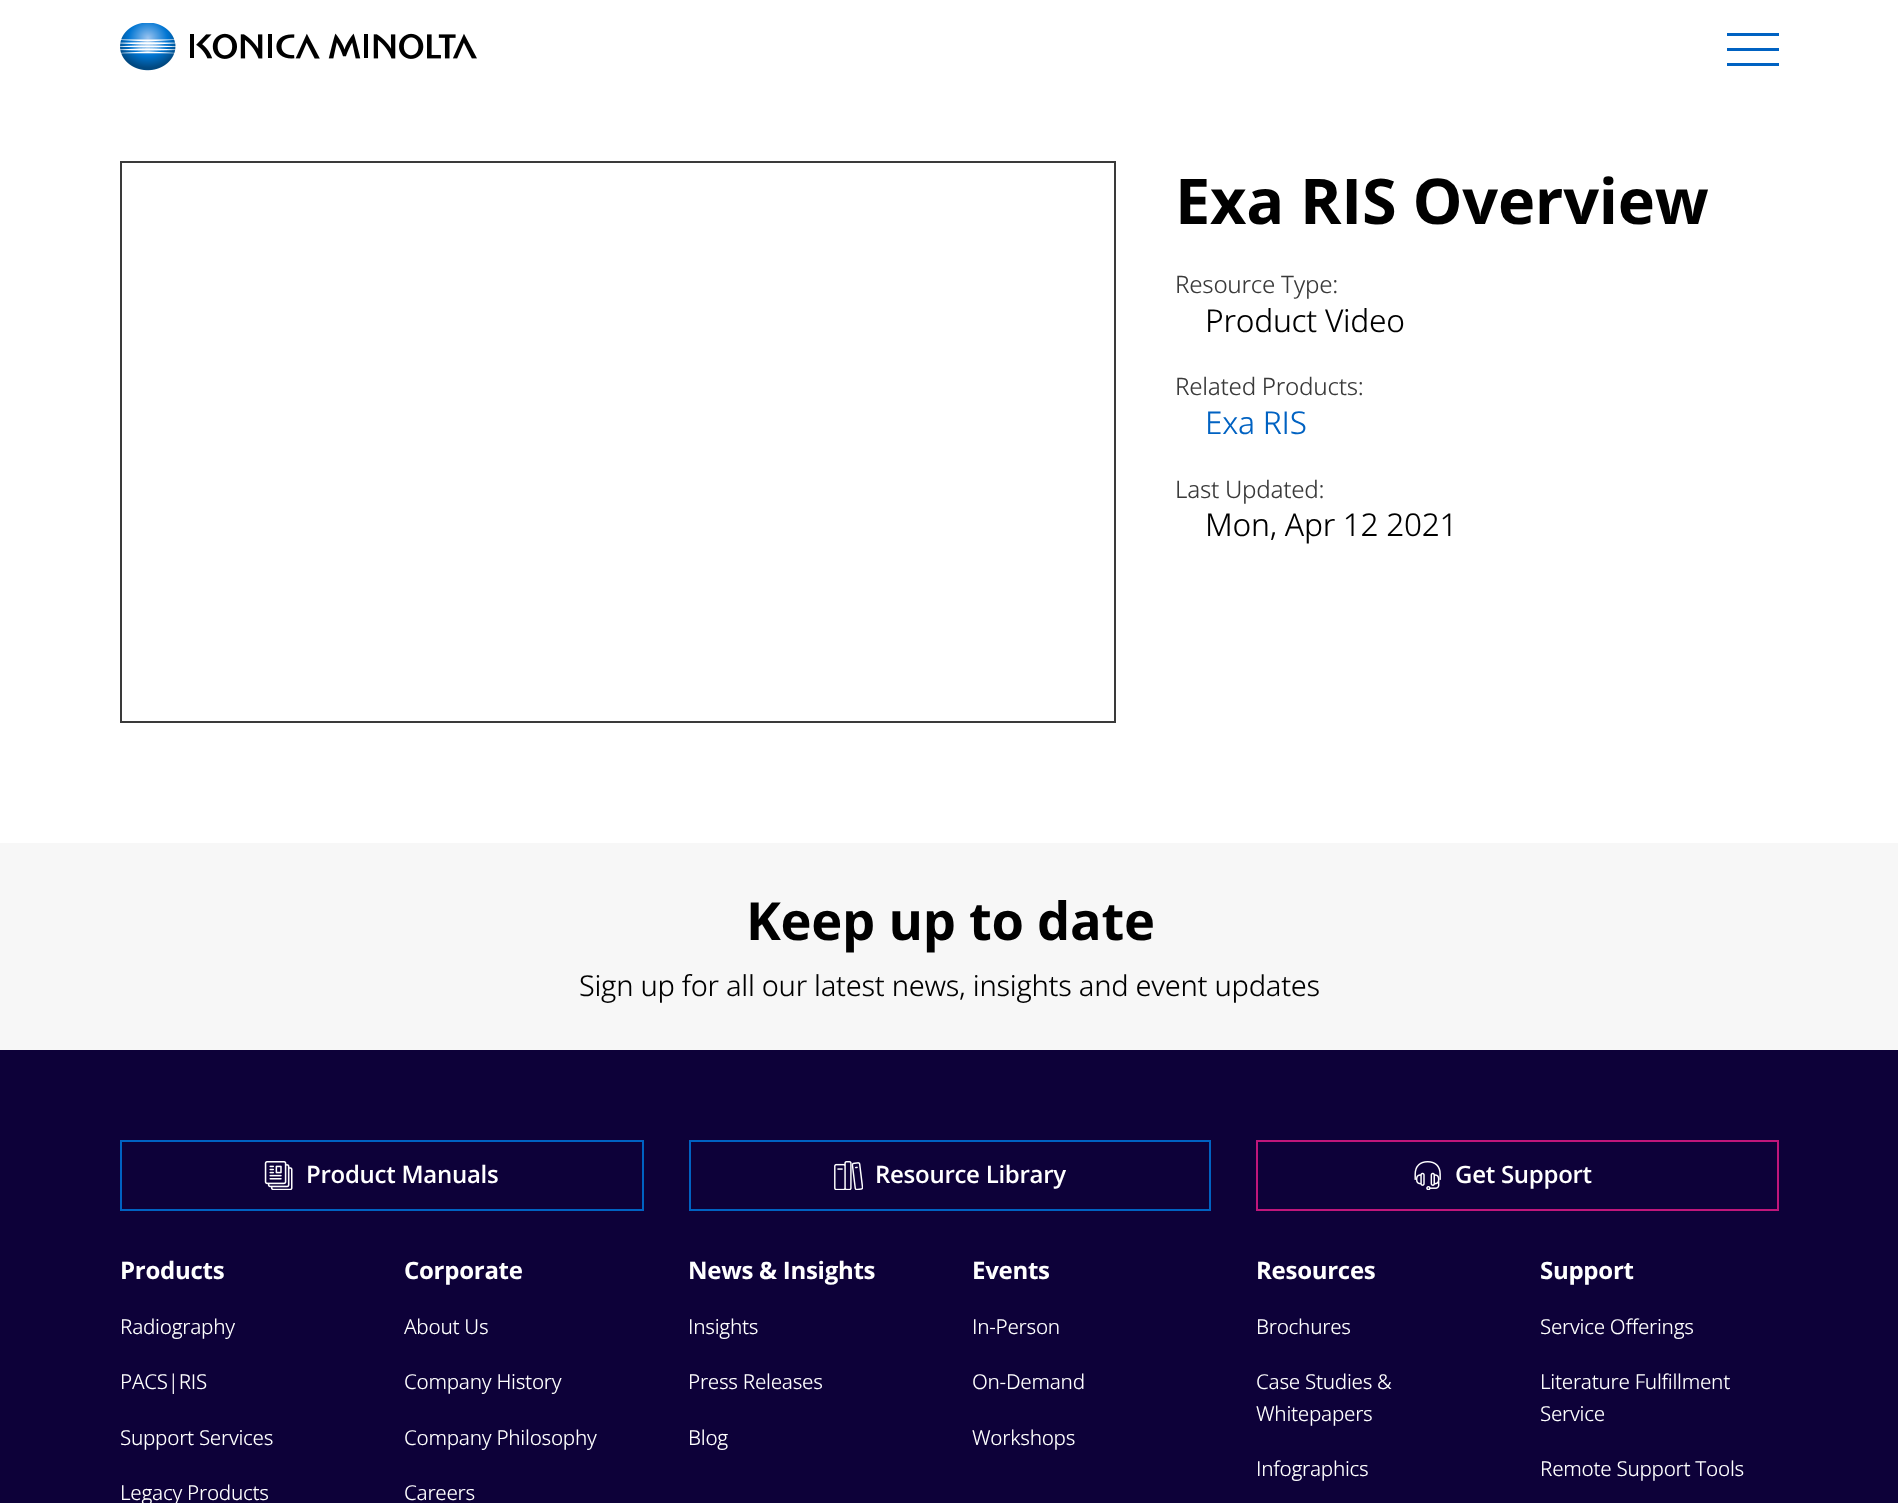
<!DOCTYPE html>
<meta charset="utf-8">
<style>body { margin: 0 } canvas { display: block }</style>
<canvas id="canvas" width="1898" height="1503"></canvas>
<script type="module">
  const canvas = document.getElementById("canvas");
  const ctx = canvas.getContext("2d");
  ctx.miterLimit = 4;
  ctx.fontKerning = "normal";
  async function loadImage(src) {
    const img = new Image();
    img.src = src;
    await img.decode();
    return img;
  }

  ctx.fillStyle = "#ffffff";
  ctx.fillRect(0, 0, 1898, 1503);
  ctx.drawImage(await loadImage("img1.png"), 120, 23, 357, 48);
  ctx.fillStyle = "#0062c2";
  ctx.fillRect(1727, 33, 52, 3);
  ctx.fillRect(1727, 48, 52, 3);
  ctx.fillRect(1727, 63, 52, 3);
  ctx.strokeStyle = "#3a3a3a";
  ctx.lineWidth = 2;
  ctx.strokeRect(121, 162, 994, 560);
  ctx.letterSpacing = "-0.27px";
  ctx.font = "bold 63px Open Sans";
  ctx.fillStyle = "#000000";
  ctx.fillText("Exa RIS Overview", 1175, 224);
  ctx.font = "300 24px Open Sans";
  ctx.fillStyle = "#3a3a3a";
  ctx.fillText("Resource Type:", 1175, 293);
  ctx.font = "300 31.5px Open Sans";
  ctx.fillStyle = "#000000";
  ctx.fillText("Product Video", 1205, 332);
  ctx.font = "300 24px Open Sans";
  ctx.fillStyle = "#3a3a3a";
  ctx.fillText("Related Products:", 1175, 395);
  ctx.font = "300 31.5px Open Sans";
  ctx.fillStyle = "#0062c2";
  ctx.fillText("Exa RIS", 1205, 434);
  ctx.font = "300 24px Open Sans";
  ctx.fillStyle = "#3a3a3a";
  ctx.fillText("Last Updated:", 1175, 498);
  ctx.font = "300 31.5px Open Sans";
  ctx.fillStyle = "#000000";
  ctx.fillText("Mon, Apr 12 2021", 1205, 536);
  ctx.fillStyle = "#f7f7f7";
  ctx.fillRect(0, 843, 1898, 207);
  ctx.font = "bold 52.5px Open Sans";
  ctx.fillStyle = "#000000";
  ctx.fillText("Keep up to date", 746, 940);
  ctx.font = "300 28.8px Open Sans";
  ctx.fillText("Sign up for all our latest news, insights and event updates", 579, 996);
  ctx.fillStyle = "#0d0139";
  ctx.fillRect(0, 1050, 1898, 453);
  ctx.strokeStyle = "#0062c2";
  ctx.strokeRect(121, 1141, 522, 69);
  ctx.drawImage(await loadImage("img2.png"), 264, 1161, 29, 29);
  ctx.font = "600 24px Open Sans";
  ctx.fillStyle = "#ffffff";
  ctx.fillText("Product Manuals", 306, 1183);
  ctx.strokeRect(690, 1141, 520, 69);
  ctx.drawImage(await loadImage("img3.png"), 834, 1161, 29, 29);
  ctx.fillText("Resource Library", 875, 1183);
  ctx.strokeStyle = "#c0167b";
  ctx.strokeRect(1257, 1141, 521, 69);
  ctx.drawImage(await loadImage("img4.png"), 1414, 1161, 27, 29);
  ctx.fillText("Get Support", 1455, 1183);
  ctx.font = "bold 24px Open Sans";
  ctx.fillText("Products", 120, 1279);
  ctx.font = "300 20.5px Open Sans";
  ctx.fillText("Radiography", 120, 1334);
  ctx.fillText("PACS|RIS", 120, 1389);
  ctx.fillText("Support Services", 120, 1445);
  ctx.fillText("Legacy Products", 120, 1500);
  ctx.font = "bold 24px Open Sans";
  ctx.fillText("Corporate", 404, 1279);
  ctx.font = "300 20.5px Open Sans";
  ctx.fillText("About Us", 404, 1334);
  ctx.fillText("Company History", 404, 1389);
  ctx.fillText("Company Philosophy", 404, 1445);
  ctx.fillText("Careers", 404, 1500);
  ctx.font = "bold 24px Open Sans";
  ctx.fillText("News & Insights", 688, 1279);
  ctx.font = "300 20.5px Open Sans";
  ctx.fillText("Insights", 688, 1334);
  ctx.fillText("Press Releases", 688, 1389);
  ctx.fillText("Blog", 688, 1445);
  ctx.font = "bold 24px Open Sans";
  ctx.fillText("Events", 972, 1279);
  ctx.font = "300 20.5px Open Sans";
  ctx.fillText("In-Person", 972, 1334);
  ctx.fillText("On-Demand", 972, 1389);
  ctx.fillText("Workshops", 972, 1445);
  ctx.font = "bold 24px Open Sans";
  ctx.fillText("Resources", 1256, 1279);
  ctx.font = "300 20.5px Open Sans";
  ctx.fillText("Brochures", 1256, 1334);
  ctx.fillText("Case Studies &", 1256, 1389);
  ctx.fillText("Whitepapers", 1256, 1421);
  ctx.fillText("Infographics", 1256, 1476);
  ctx.font = "bold 24px Open Sans";
  ctx.fillText("Support", 1540, 1279);
  ctx.font = "300 20.5px Open Sans";
  ctx.fillText("Service Offerings", 1540, 1334);
  ctx.fillText("Literature Fulfillment", 1540, 1389);
  ctx.fillText("Service", 1540, 1421);
  ctx.fillText("Remote Support Tools", 1540, 1476);
</script>
